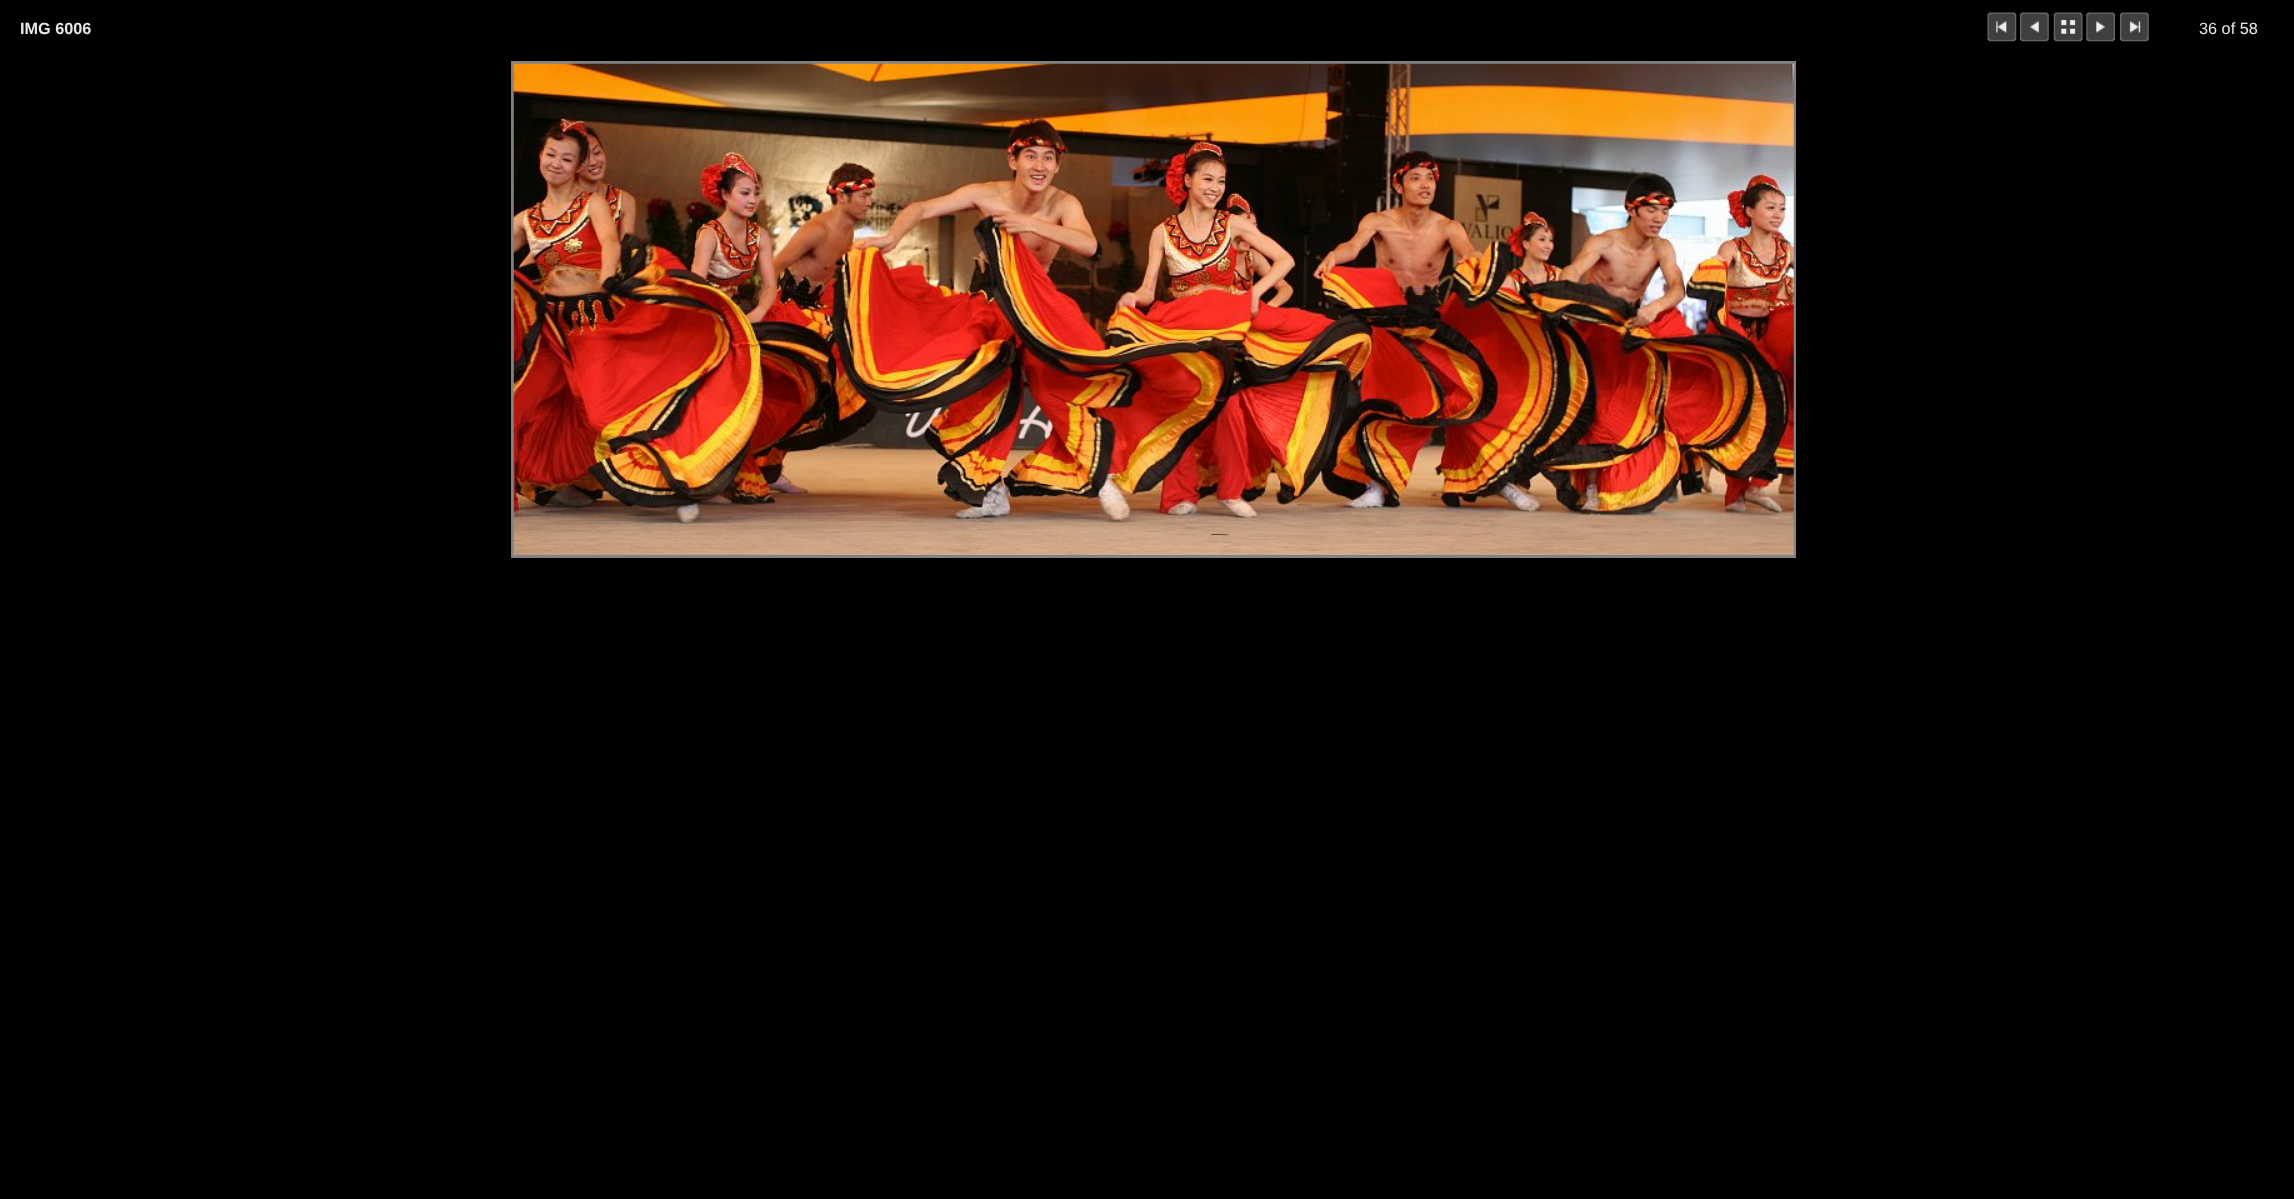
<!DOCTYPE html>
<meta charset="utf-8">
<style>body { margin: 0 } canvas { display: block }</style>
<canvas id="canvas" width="2294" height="1199"></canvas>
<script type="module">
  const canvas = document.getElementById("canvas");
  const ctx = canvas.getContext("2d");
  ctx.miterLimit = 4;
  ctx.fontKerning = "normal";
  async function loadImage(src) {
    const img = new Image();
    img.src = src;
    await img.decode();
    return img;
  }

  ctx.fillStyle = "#000000";
  ctx.fillRect(0, 0, 2294, 1199);
  ctx.font = "bold 16.25px Liberation Sans";
  ctx.fillStyle = "#e9e9e9";
  ctx.fillText("IMG 6006", 20, 34);
  ctx.drawImage(await loadImage("img1.png"), 1987, 12, 30, 30);
  ctx.drawImage(await loadImage("img2.png"), 2020, 12, 29, 30);
  ctx.drawImage(await loadImage("img3.png"), 2053, 12, 30, 30);
  ctx.drawImage(await loadImage("img4.png"), 2086, 12, 29, 30);
  ctx.drawImage(await loadImage("img5.png"), 2120, 12, 29, 30);
  ctx.font = "16.25px Liberation Sans";
  ctx.fillText("36 of 58", 2199, 34);
  ctx.strokeStyle = "#828282";
  ctx.lineWidth = 3;
  ctx.strokeRect(512.5, 62.5, 1282, 494);
  ctx.drawImage(await loadImage("img6.png"), 513, 63, 1281, 492);
</script>
